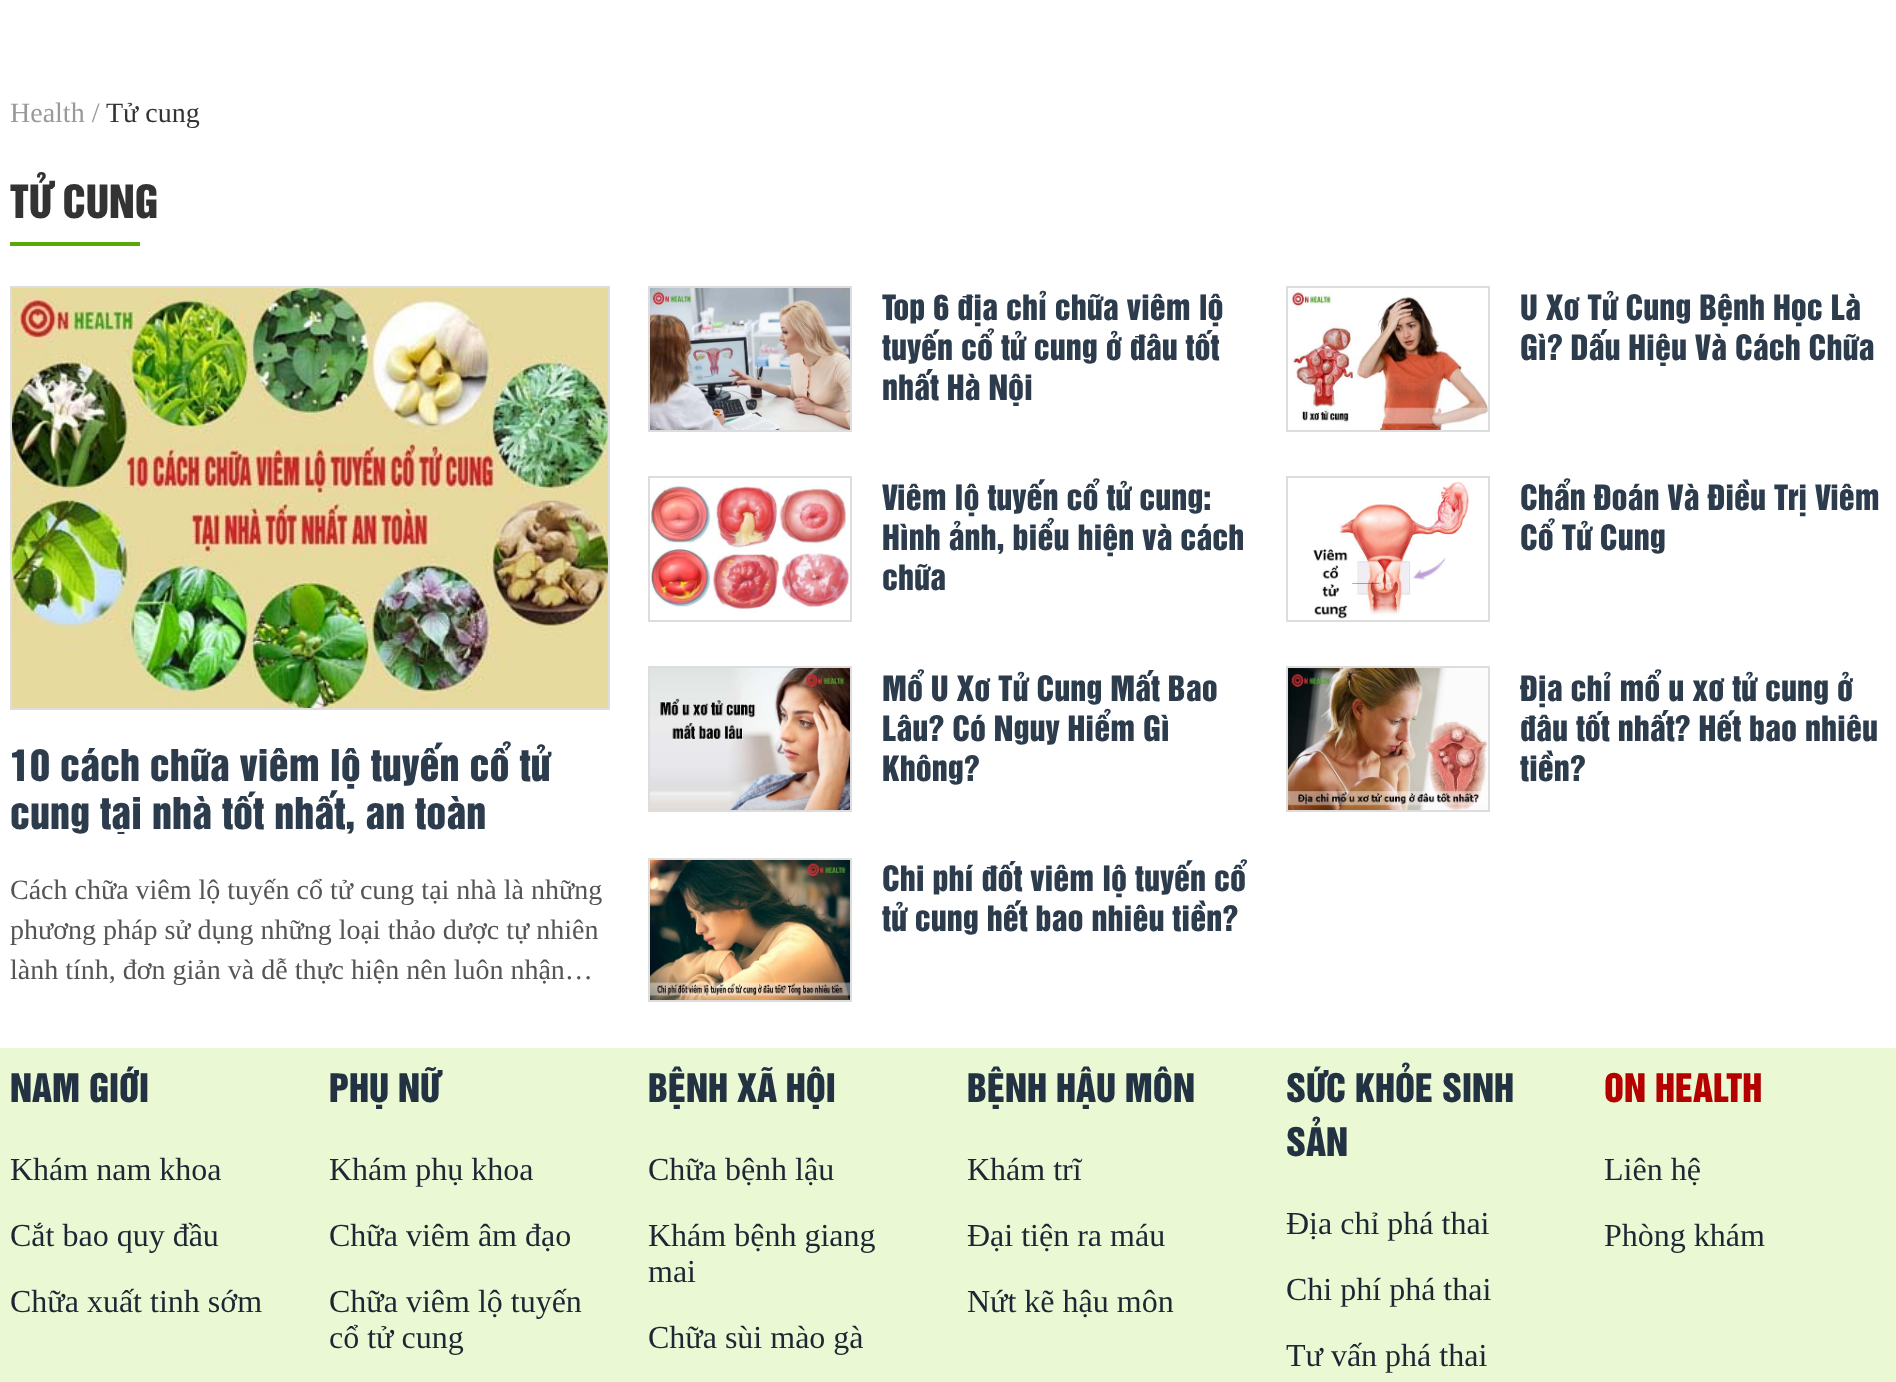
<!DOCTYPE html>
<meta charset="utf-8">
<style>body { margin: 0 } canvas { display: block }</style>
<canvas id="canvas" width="1896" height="1382"></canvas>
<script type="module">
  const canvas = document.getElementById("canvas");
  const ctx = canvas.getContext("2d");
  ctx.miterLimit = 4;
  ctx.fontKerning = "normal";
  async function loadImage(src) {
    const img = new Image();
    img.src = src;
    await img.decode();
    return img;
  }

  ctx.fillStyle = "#ffffff";
  ctx.fillRect(0, 0, 1896, 1382);
  ctx.font = "28px Liberation Serif";
  ctx.fillStyle = "#999999";
  ctx.fillText("Health /", 10, 122);
  ctx.fillStyle = "#333333";
  ctx.fillText("Tử cung", 106, 122);
  ctx.font = "42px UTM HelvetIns";
  ctx.fillText("TỬ CUNG", 10, 218);
  ctx.fillStyle = "#59a709";
  ctx.fillRect(10, 242, 130, 4);
  ctx.strokeStyle = "#dddddd";
  ctx.lineWidth = 2;
  ctx.strokeRect(11, 287, 598, 422);
  ctx.drawImage(await loadImage("img1.png"), 12, 288, 596, 420);
  ctx.font = "40px UTM HelvetIns";
  ctx.fillStyle = "#2c3c4d";
  ctx.fillText("10 cách chữa viêm lộ tuyến cổ tử", 10, 781);
  ctx.save();
  ctx.beginPath();
  ctx.rect(10, 738, 600, 96);
  ctx.clip();
  ctx.fillText("cung tại nhà tốt nhất, an toàn", 10, 829);
  ctx.restore();
  ctx.font = "28px Liberation Serif";
  ctx.fillStyle = "#555555";
  ctx.fillText("Cách chữa viêm lộ tuyến cổ tử cung tại nhà là những", 10, 899);
  ctx.fillText("phương pháp sử dụng những loại thảo dược tự nhiên", 10, 939);
  ctx.fillText("lành tính, đơn giản và dễ thực hiện nên luôn nhận…", 10, 979);
  ctx.strokeRect(649, 287, 202, 144);
  ctx.drawImage(await loadImage("img2.png"), 650, 288, 200, 142);
  ctx.font = "32px UTM HelvetIns";
  ctx.fillStyle = "#2c3c4d";
  ctx.fillText("Top 6 địa chỉ chữa viêm lộ", 882, 320);
  ctx.fillText("tuyến cổ tử cung ở đâu tốt", 882, 360);
  ctx.save();
  ctx.beginPath();
  ctx.rect(852, 286, 396, 120);
  ctx.clip();
  ctx.fillText("nhất Hà Nội", 882, 400);
  ctx.restore();
  ctx.strokeRect(1287, 287, 202, 144);
  ctx.drawImage(await loadImage("img3.png"), 1288, 289, 200, 141);
  ctx.fillText("U Xơ Tử Cung Bệnh Học Là", 1520, 320);
  ctx.save();
  ctx.beginPath();
  ctx.rect(1490, 286, 396, 80);
  ctx.clip();
  ctx.fillText("Gì? Dấu Hiệu Và Cách Chữa", 1520, 360);
  ctx.restore();
  ctx.strokeRect(649, 477, 202, 144);
  ctx.drawImage(await loadImage("img4.png"), 650, 486, 200, 128);
  ctx.fillText("Viêm lộ tuyến cổ tử cung:", 882, 510);
  ctx.fillText("Hình ảnh, biểu hiện và cách", 882, 550);
  ctx.fillText("chữa", 882, 590);
  ctx.strokeRect(1287, 477, 202, 144);
  ctx.drawImage(await loadImage("img5.png"), 1313, 481, 156, 138);
  ctx.fillText("Chẩn Đoán Và Điều Trị Viêm", 1520, 510);
  ctx.fillText("Cổ Tử Cung", 1520, 550);
  ctx.strokeRect(649, 667, 202, 144);
  ctx.drawImage(await loadImage("img6.png"), 650, 668, 200, 142);
  ctx.fillText("Mổ U Xơ Tử Cung Mất Bao", 882, 701);
  ctx.fillText("Lâu? Có Nguy Hiểm Gì", 882, 741);
  ctx.fillText("Không?", 882, 781);
  ctx.strokeRect(1287, 667, 202, 144);
  ctx.drawImage(await loadImage("img7.png"), 1288, 668, 200, 142);
  ctx.fillText("Địa chỉ mổ u xơ tử cung ở", 1520, 701);
  ctx.fillText("đâu tốt nhất? Hết bao nhiêu", 1520, 741);
  ctx.fillText("tiền?", 1520, 781);
  ctx.strokeRect(649, 859, 202, 142);
  ctx.drawImage(await loadImage("img8.png"), 650, 860, 200, 140);
  ctx.fillText("Chi phí đốt viêm lộ tuyến cổ", 882, 891);
  ctx.fillText("tử cung hết bao nhiêu tiền?", 882, 931);
  ctx.fillStyle = "#ebf8d4";
  ctx.fillRect(0, 1048, 1896, 334);
  ctx.font = "36px UTM HelvetIns";
  ctx.fillStyle = "#233242";
  ctx.fillText("NAM GIỚI", 10, 1102);
  ctx.font = "32px Liberation Serif";
  ctx.fillStyle = "#1c2733";
  ctx.fillText("Khám nam khoa", 10, 1180);
  ctx.fillText("Cắt bao quy đầu", 10, 1246);
  ctx.fillText("Chữa xuất tinh sớm", 10, 1312);
  ctx.font = "36px UTM HelvetIns";
  ctx.fillStyle = "#233242";
  ctx.fillText("PHỤ NỮ", 329, 1102);
  ctx.font = "32px Liberation Serif";
  ctx.fillStyle = "#1c2733";
  ctx.fillText("Khám phụ khoa", 329, 1180);
  ctx.fillText("Chữa viêm âm đạo", 329, 1246);
  ctx.fillText("Chữa viêm lộ tuyến", 329, 1312);
  ctx.fillText("cổ tử cung", 329, 1348);
  ctx.font = "36px UTM HelvetIns";
  ctx.fillStyle = "#233242";
  ctx.fillText("BỆNH XÃ HỘI", 648, 1102);
  ctx.font = "32px Liberation Serif";
  ctx.fillStyle = "#1c2733";
  ctx.fillText("Chữa bệnh lậu", 648, 1180);
  ctx.fillText("Khám bệnh giang", 648, 1246);
  ctx.fillText("mai", 648, 1282);
  ctx.fillText("Chữa sùi mào gà", 648, 1348);
  ctx.font = "36px UTM HelvetIns";
  ctx.fillStyle = "#233242";
  ctx.fillText("BỆNH HẬU MÔN", 967, 1102);
  ctx.font = "32px Liberation Serif";
  ctx.fillStyle = "#1c2733";
  ctx.fillText("Khám trĩ", 967, 1180);
  ctx.fillText("Đại tiện ra máu", 967, 1246);
  ctx.fillText("Nứt kẽ hậu môn", 967, 1312);
  ctx.font = "36px UTM HelvetIns";
  ctx.fillStyle = "#233242";
  ctx.fillText("SỨC KHỎE SINH", 1286, 1102);
  ctx.fillText("SẢN", 1286, 1156);
  ctx.font = "32px Liberation Serif";
  ctx.fillStyle = "#1c2733";
  ctx.fillText("Địa chỉ phá thai", 1286, 1234);
  ctx.fillText("Chi phí phá thai", 1286, 1300);
  ctx.fillText("Tư vấn phá thai", 1286, 1366);
  ctx.font = "36px UTM HelvetIns";
  ctx.fillStyle = "#b50000";
  ctx.fillText("ON HEALTH", 1604, 1102);
  ctx.font = "32px Liberation Serif";
  ctx.fillStyle = "#1c2733";
  ctx.fillText("Liên hệ", 1604, 1180);
  ctx.fillText("Phòng khám", 1604, 1246);
</script>
